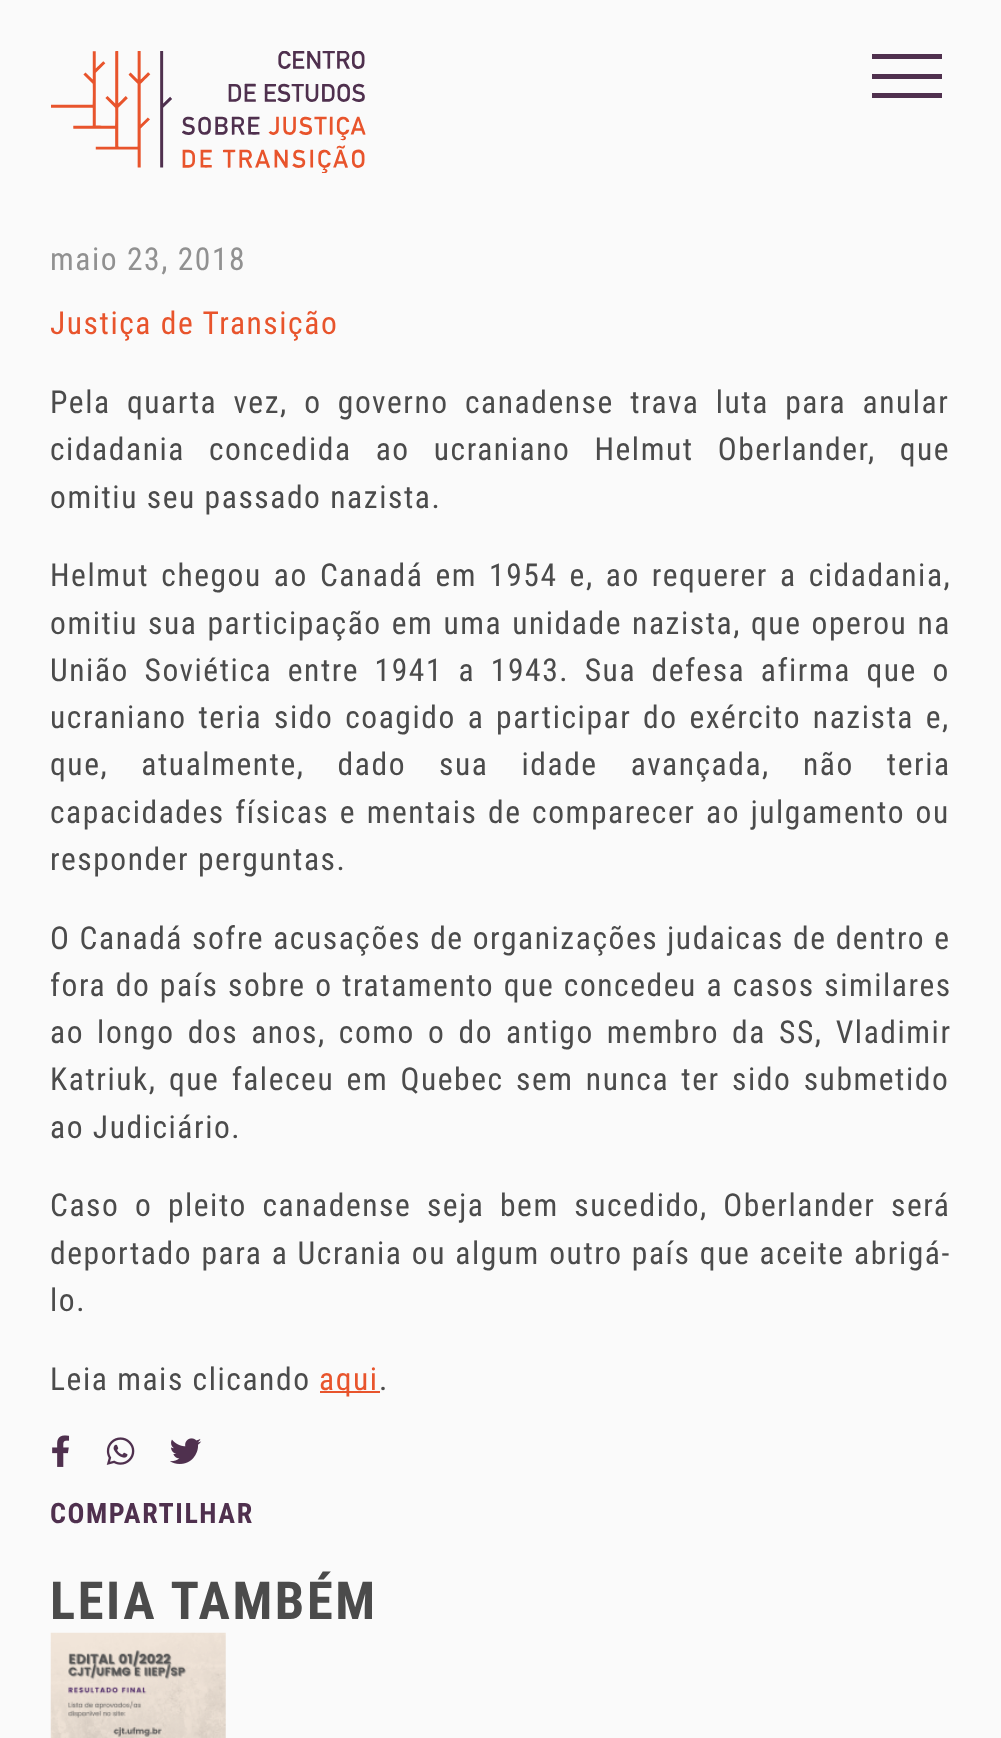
<!DOCTYPE html>
<meta charset="utf-8">
<style>body { margin: 0 } canvas { display: block }</style>
<canvas id="canvas" width="1001" height="1738"></canvas>
<script type="module">
  const canvas = document.getElementById("canvas");
  const ctx = canvas.getContext("2d");
  ctx.miterLimit = 4;
  ctx.fontKerning = "normal";
  async function loadImage(src) {
    const img = new Image();
    img.src = src;
    await img.decode();
    return img;
  }

  ctx.fillStyle = "#fafafa";
  ctx.fillRect(0, 0, 1001, 1738);
  ctx.drawImage(await loadImage("img1.png"), 51, 51, 315, 122);
  ctx.fillStyle = "#4f304e";
  ctx.fillRect(872, 54, 70, 5);
  ctx.fillRect(872, 74, 70, 5);
  ctx.fillRect(872, 93, 70, 5);
  ctx.letterSpacing = "1.57px";
  ctx.font = "31.5px Roboto Condensed";
  ctx.fillStyle = "#919191";
  ctx.fillText("maio 23, 2018", 50, 270);
  ctx.fillStyle = "#e8542c";
  ctx.fillText("Justiça de Transição", 50, 334);
  ctx.wordSpacing = "7.5px";
  ctx.fillStyle = "#4b4b4b";
  ctx.fillText("Pela quarta vez, o governo canadense trava luta para anular", 50, 413);
  ctx.wordSpacing = "15.25px";
  ctx.fillText("cidadania concedida ao ucraniano Helmut Oberlander, que", 50, 460);
  ctx.wordSpacing = "0px";
  ctx.fillText("omitiu seu passado nazista.", 50, 508);
  ctx.wordSpacing = "3.25px";
  ctx.fillText("Helmut chegou ao Canadá em 1954 e, ao requerer a cidadania,", 50, 586);
  ctx.wordSpacing = "1.25px";
  ctx.fillText("omitiu sua participação em uma unidade nazista, que operou na", 50, 634);
  ctx.wordSpacing = "6.75px";
  ctx.fillText("União Soviética entre 1941 a 1943. Sua defesa afirma que o", 50, 681);
  ctx.wordSpacing = "3px";
  ctx.fillText("ucraniano teria sido coagido a participar do exército nazista e,", 50, 728);
  ctx.wordSpacing = "24.25px";
  ctx.fillText("que, atualmente, dado sua idade avançada, não teria", 50, 775);
  ctx.wordSpacing = "1.75px";
  ctx.fillText("capacidades físicas e mentais de comparecer ao julgamento ou", 50, 823);
  ctx.wordSpacing = "0px";
  ctx.fillText("responder perguntas.", 50, 870);
  ctx.wordSpacing = "0.25px";
  ctx.fillText("O Canadá sofre acusações de organizações judaicas de dentro e", 50, 949);
  ctx.wordSpacing = "0.75px";
  ctx.fillText("fora do país sobre o tratamento que concedeu a casos similares", 50, 996);
  ctx.wordSpacing = "4.25px";
  ctx.fillText("ao longo dos anos, como o do antigo membro da SS, Vladimir", 50, 1043);
  ctx.wordSpacing = "3.5px";
  ctx.fillText("Katriuk, que faleceu em Quebec sem nunca ter sido submetido", 50, 1090);
  ctx.wordSpacing = "0px";
  ctx.fillText("ao Judiciário.", 50, 1138);
  ctx.wordSpacing = "6.75px";
  ctx.fillText("Caso o pleito canadense seja bem sucedido, Oberlander será", 50, 1216);
  ctx.wordSpacing = "0.5px";
  ctx.fillText("deportado para a Ucrania ou algum outro país que aceite abrigá-", 50, 1264);
  ctx.wordSpacing = "0px";
  ctx.fillText("lo.", 50, 1311);
  ctx.fillText("Leia mais clicando", 50, 1390);
  ctx.fillStyle = "#e8542c";
  ctx.fillRect(320, 1391, 60, 2);
  ctx.fillText("aqui", 319, 1390);
  ctx.fillStyle = "#4b4b4b";
  ctx.fillText(".", 379, 1390);
  ctx.drawImage(await loadImage("img2.png"), 52, 1435, 18, 32);
  ctx.drawImage(await loadImage("img3.png"), 106, 1437, 29, 28);
  ctx.drawImage(await loadImage("img4.png"), 170, 1438, 32, 26);
  ctx.font = "bold 28px Roboto Condensed";
  ctx.fillStyle = "#4f304e";
  ctx.fillText("COMPARTILHAR", 50, 1523);
  ctx.letterSpacing = "2.6px";
  ctx.font = "bold 52.5px Roboto Condensed";
  ctx.fillStyle = "#4b4b4b";
  ctx.fillText("LEIA TAMBÉM", 50, 1619);
  ctx.drawImage(await loadImage("img5.png"), 50, 1632, 176, 106);
</script>
